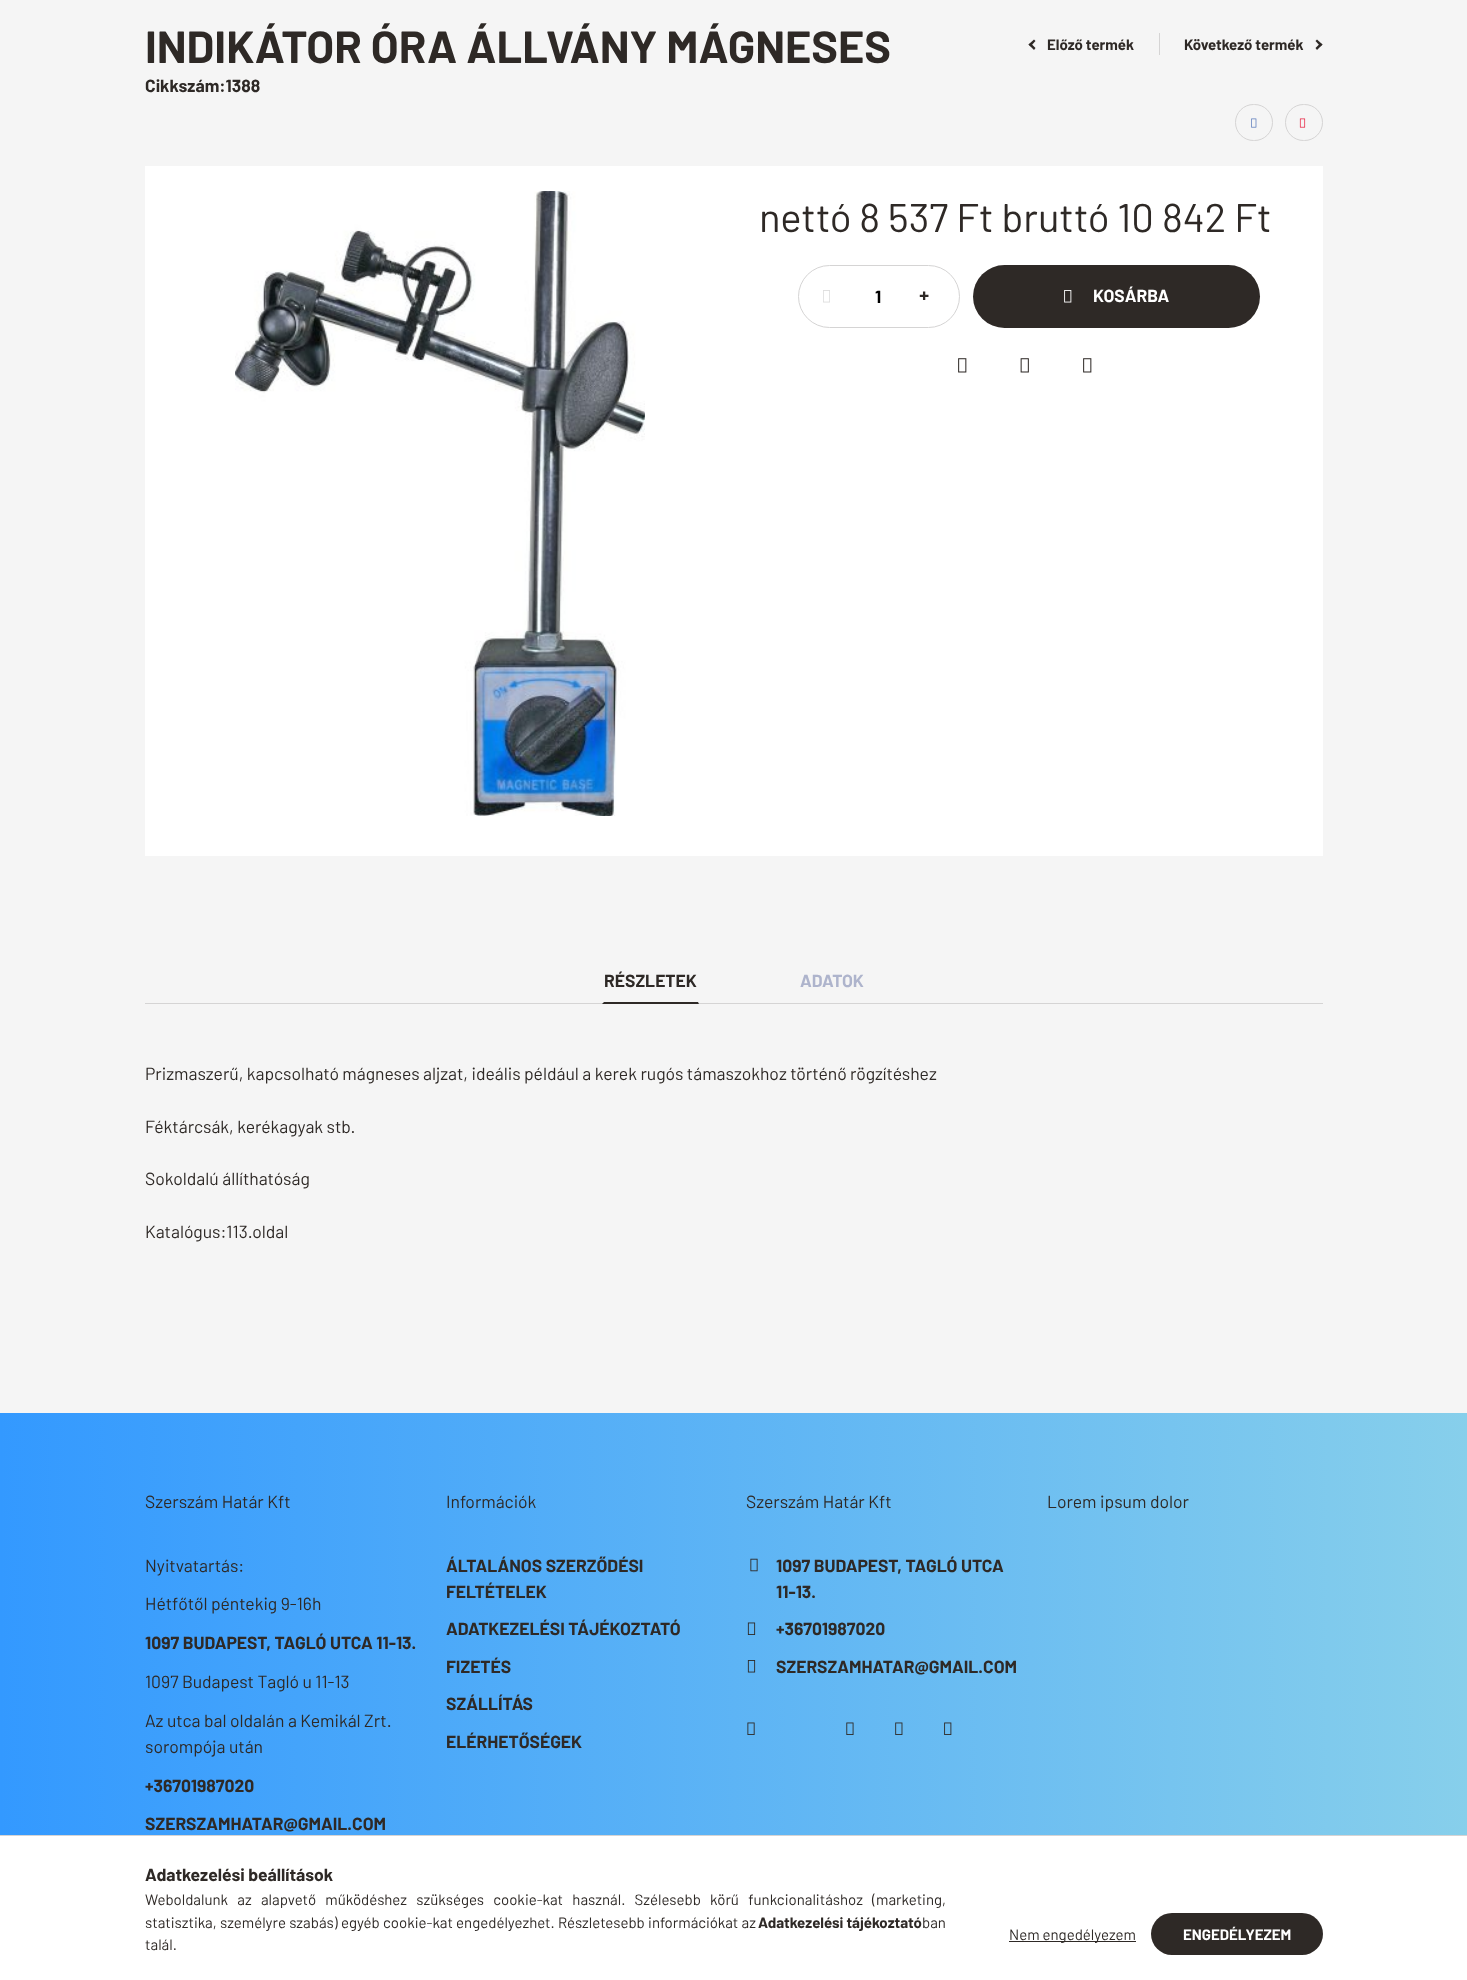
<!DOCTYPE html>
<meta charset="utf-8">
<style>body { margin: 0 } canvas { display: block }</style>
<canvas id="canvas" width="1467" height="1980"></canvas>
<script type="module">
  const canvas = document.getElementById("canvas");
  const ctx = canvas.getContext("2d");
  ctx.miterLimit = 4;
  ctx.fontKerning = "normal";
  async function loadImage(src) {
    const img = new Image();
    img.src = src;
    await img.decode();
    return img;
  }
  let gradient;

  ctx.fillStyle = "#f5f5f5";
  ctx.fillRect(0, 0, 1467, 1980);
  ctx.font = "bold 45px Barlow";
  ctx.fillStyle = "#2e2926";
  ctx.fillText("INDIKÁTOR ÓRA ÁLLVÁNY MÁGNESES", 145, 63);
  ctx.beginPath();
  ctx.moveTo(1028.5, 44.5);
  ctx.lineTo(1034, 39.5);
  ctx.lineTo(1035.5, 41);
  ctx.lineTo(1030.5, 46.5);
  ctx.closePath();
  ctx.fill();
  ctx.beginPath();
  ctx.moveTo(1030.5, 43);
  ctx.lineTo(1035.5, 48);
  ctx.lineTo(1034, 50);
  ctx.lineTo(1028.5, 44.5);
  ctx.closePath();
  ctx.fill();
  ctx.font = "bold 15px Barlow";
  ctx.fillText("Előző termék", 1047, 50);
  ctx.fillStyle = "#d5d4d4";
  ctx.fillRect(1159, 33, 1, 22);
  ctx.fillStyle = "#2e2926";
  ctx.fillText("Következő termék", 1184, 50);
  ctx.beginPath();
  ctx.moveTo(1315.5, 48);
  ctx.lineTo(1320.5, 43);
  ctx.lineTo(1322.5, 44.5);
  ctx.lineTo(1317, 50);
  ctx.closePath();
  ctx.fill();
  ctx.beginPath();
  ctx.moveTo(1317, 39.5);
  ctx.lineTo(1322.5, 44.5);
  ctx.lineTo(1320.5, 46.5);
  ctx.lineTo(1315.5, 41);
  ctx.closePath();
  ctx.fill();
  ctx.font = "bold 17.5px Barlow";
  ctx.fillText("Cikkszám:1388", 145, 92);
  ctx.beginPath();
  ctx.roundRect(1235.5, 104.5, 37, 36, 18);
  ctx.strokeStyle = "#d5d4d4";
  ctx.stroke();
  ctx.drawImage(await loadImage("img1.png"), 1251, 118, 6, 10);
  ctx.beginPath();
  ctx.roundRect(1285.5, 104.5, 37, 36, 18);
  ctx.stroke();
  ctx.drawImage(await loadImage("img2.png"), 1299, 118, 7, 10);
  ctx.fillStyle = "#ffffff";
  ctx.fillRect(145, 166, 1178, 690);
  ctx.drawImage(await loadImage("img3.png"), 235, 191, 410, 625);
  ctx.font = "40px Barlow";
  ctx.fillStyle = "#2e2926";
  ctx.fillText("nettó 8 537 Ft bruttó 10 842 Ft", 759, 232);
  ctx.beginPath();
  ctx.roundRect(798.5, 265.5, 161, 62, 31);
  ctx.stroke();
  ctx.drawImage(await loadImage("img4.png"), 823, 290, 7, 13);
  ctx.font = "bold 17.5px Barlow";
  ctx.fillStyle = "#000000";
  ctx.fillText("1", 875, 303);
  ctx.font = "900 17.5px Noto Sans";
  ctx.fillStyle = "#2e2926";
  ctx.fillText("+", 919, 302);
  gradient = ctx.createLinearGradient(973, 296, 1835, 296);
  gradient.addColorStop(0.33, "#2e2926");
  gradient.addColorStop(0.67, "#aeb4cc");
  ctx.fillStyle = gradient;
  ctx.beginPath();
  ctx.roundRect(973, 265, 287, 63, 31.5);
  ctx.fill();
  ctx.drawImage(await loadImage("img5.png"), 1064, 290, 8, 13);
  ctx.font = "bold 17.5px Barlow";
  ctx.fillStyle = "#ffffff";
  ctx.fillText("KOSÁRBA", 1093, 302);
  ctx.drawImage(await loadImage("img6.png"), 958, 358, 9, 15);
  ctx.drawImage(await loadImage("img7.png"), 1020, 358, 9, 15);
  ctx.drawImage(await loadImage("img6.png"), 1083, 358, 9, 15);
  ctx.fillStyle = "#d5d4d4";
  ctx.fillRect(145, 1003, 1178, 1);
  ctx.fillStyle = "#f5f5f5";
  ctx.fillRect(603, 1003, 96, 1);
  ctx.fillStyle = "#2e2926";
  ctx.beginPath();
  ctx.moveTo(699, 1004);
  ctx.lineTo(602, 1004);
  ctx.lineTo(604, 1002);
  ctx.lineTo(698, 1002);
  ctx.closePath();
  ctx.fill();
  ctx.fillText("RÉSZLETEK", 604, 987);
  ctx.fillStyle = "#aeb4cc";
  ctx.fillText("ADATOK", 800, 987);
  ctx.font = "17.5px Barlow";
  ctx.fillStyle = "#2e2926";
  ctx.fillText("Prizmaszerű, kapcsolható mágneses aljzat, ideális például a kerek rugós támaszokhoz történő rögzítéshez", 145, 1080);
  ctx.fillText("Féktárcsák, kerékagyak stb.", 145, 1133);
  ctx.fillText("Sokoldalú állíthatóság", 145, 1185);
  ctx.fillText("Katalógus:113.oldal", 145, 1238);
  gradient = ctx.createLinearGradient(0, 990, 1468, 990);
  gradient.addColorStop(0, "#3399ff");
  gradient.addColorStop(1, "#87cfeb");
  ctx.fillStyle = gradient;
  ctx.fillRect(0, 1413, 1467, 422);
  ctx.fillStyle = "#2e2926";
  ctx.fillText("Szerszám Határ Kft", 145, 1508);
  ctx.fillText("Nyitvatartás:", 145, 1572);
  ctx.fillText("Hétfőtől péntekig 9-16h", 145, 1610);
  ctx.font = "bold 17.5px Barlow";
  ctx.fillText("1097 BUDAPEST, TAGLÓ UTCA 11-13.", 145, 1649);
  ctx.font = "17.5px Barlow";
  ctx.fillText("1097 Budapest Tagló u 11-13", 145, 1688);
  ctx.fillText("Az utca bal oldalán a Kemikál Zrt.", 145, 1727);
  ctx.fillText("sorompója után", 145, 1753);
  ctx.font = "bold 17.5px Barlow";
  ctx.fillText("+36701987020", 145, 1792);
  ctx.fillText("SZERSZAMHATAR@GMAIL.COM", 145, 1830);
  ctx.font = "17.5px Barlow";
  ctx.fillText("Információk", 446, 1508);
  ctx.font = "bold 17.5px Barlow";
  ctx.fillText("ÁLTALÁNOS SZERZŐDÉSI", 446, 1572);
  ctx.fillText("FELTÉTELEK", 446, 1598);
  ctx.fillText("ADATKEZELÉSI TÁJÉKOZTATÓ", 446, 1635);
  ctx.fillText("FIZETÉS", 446, 1673);
  ctx.fillText("SZÁLLÍTÁS", 446, 1710);
  ctx.fillText("ELÉRHETŐSÉGEK", 446, 1748);
  ctx.font = "17.5px Barlow";
  ctx.fillText("Szerszám Határ Kft", 746, 1508);
  ctx.drawImage(await loadImage("img8.png"), 750, 1558, 8, 14);
  ctx.font = "bold 17.5px Barlow";
  ctx.fillText("1097 BUDAPEST, TAGLÓ UTCA", 776, 1572);
  ctx.fillText("11-13.", 776, 1598);
  ctx.drawImage(await loadImage("img9.png"), 747, 1622, 9, 13);
  ctx.fillText("+36701987020", 776, 1635);
  ctx.drawImage(await loadImage("img10.png"), 747, 1660, 9, 13);
  ctx.fillText("SZERSZAMHATAR@GMAIL.COM", 776, 1673);
  ctx.drawImage(await loadImage("img11.png"), 747, 1722, 8, 13);
  ctx.drawImage(await loadImage("img12.png"), 846, 1722, 8, 13);
  ctx.drawImage(await loadImage("img13.png"), 895, 1722, 8, 13);
  ctx.drawImage(await loadImage("img14.png"), 944, 1722, 8, 13);
  ctx.font = "17.5px Barlow";
  ctx.fillText("Lorem ipsum dolor", 1047, 1508);
  ctx.fillStyle = "#ffffff";
  ctx.fillRect(0, 1836, 1467, 144);
  ctx.fillStyle = "#d5d4d4";
  ctx.fillRect(0, 1835, 1467, 1);
  ctx.font = "bold 17.5px Barlow";
  ctx.fillStyle = "#2e2926";
  ctx.fillText("Adatkezelési beállítások", 145, 1881);
  ctx.wordSpacing = "6.25px";
  ctx.font = "15px Barlow";
  ctx.fillText("Weboldalunk az alapvető működéshez szükséges cookie-kat használ. Szélesebb körű funkcionalitáshoz (marketing,", 145, 1905);
  ctx.wordSpacing = "0.25px";
  ctx.fillText("statisztika, személyre szabás) egyéb cookie-kat engedélyezhet. Részletesebb információkat az", 145, 1928);
  ctx.wordSpacing = "0px";
  ctx.font = "bold 15px Barlow";
  ctx.fillText("Adatkezelési tájékoztató", 758, 1928);
  ctx.font = "15px Barlow";
  ctx.fillText("ban", 922, 1928);
  ctx.fillText("talál.", 145, 1950);
  ctx.fillRect(1009, 1941, 127, 1);
  ctx.fillText("Nem engedélyezem", 1009, 1940);
  gradient = ctx.createLinearGradient(1151, 1934, 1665, 1934);
  gradient.addColorStop(0.33, "#2e2926");
  gradient.addColorStop(0.67, "#aeb4cc");
  ctx.fillStyle = gradient;
  ctx.beginPath();
  ctx.roundRect(1151, 1913, 172, 42, 21);
  ctx.fill();
  ctx.font = "bold 15px Barlow";
  ctx.fillStyle = "#ffffff";
  ctx.fillText("ENGEDÉLYEZEM", 1183, 1940);
</script>
